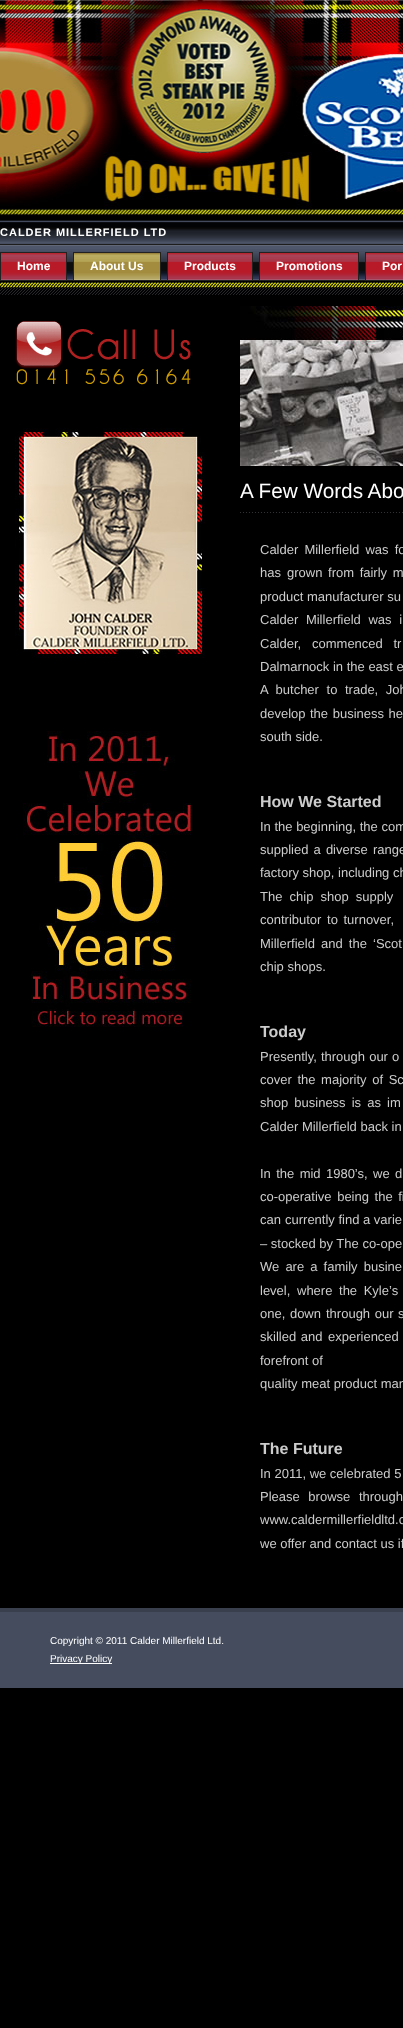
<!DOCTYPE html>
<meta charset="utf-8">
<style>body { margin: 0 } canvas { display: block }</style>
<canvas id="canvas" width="403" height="2028"></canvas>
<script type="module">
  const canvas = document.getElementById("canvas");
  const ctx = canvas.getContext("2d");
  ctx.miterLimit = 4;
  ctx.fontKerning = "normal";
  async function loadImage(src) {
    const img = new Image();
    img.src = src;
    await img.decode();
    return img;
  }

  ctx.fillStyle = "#000000";
  ctx.fillRect(0, 0, 403, 2028);
  ctx.drawImage(await loadImage("img1.png"), 0, 0, 403, 216);
  ctx.drawImage(await loadImage("img2.png"), 0, 220, 403, 61);
  ctx.letterSpacing = "1px";
  ctx.font = "bold 11px Liberation Sans";
  ctx.fillStyle = "#ffffff";
  ctx.fillText("CALDER MILLERFIELD LTD", 0, 236);
  ctx.drawImage(await loadImage("img3.png"), 1, 253, 65, 27);
  ctx.strokeStyle = "#222222";
  ctx.strokeRect(0.5, 252.5, 66, 28);
  ctx.letterSpacing = "0px";
  ctx.font = "bold 12px Liberation Sans";
  ctx.fillText("Home", 17, 270);
  ctx.drawImage(await loadImage("img4.png"), 74, 253, 86, 27);
  ctx.strokeRect(73.5, 252.5, 87, 28);
  ctx.fillText("About Us", 90, 270);
  ctx.drawImage(await loadImage("img5.png"), 168, 253, 84, 27);
  ctx.strokeRect(167.5, 252.5, 85, 28);
  ctx.fillText("Products", 184, 270);
  ctx.drawImage(await loadImage("img6.png"), 260, 253, 98, 27);
  ctx.strokeRect(259.5, 252.5, 99, 28);
  ctx.fillText("Promotions", 276, 270);
  ctx.drawImage(await loadImage("img7.png"), 366, 253, 37, 27);
  ctx.strokeRect(365.5, 252.5, 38, 28);
  ctx.fillText("Por", 382, 270);
  ctx.drawImage(await loadImage("img8.png"), 0, 282, 403, 13);
  ctx.drawImage(await loadImage("img9.png"), 15, 321, 176, 64);
  ctx.drawImage(await loadImage("img10.png"), 15, 428, 190, 230);
  ctx.drawImage(await loadImage("img11.png"), 23, 731, 168, 296);
  ctx.drawImage(await loadImage("img12.png"), 240, 306, 163, 160);
  ctx.drawImage(await loadImage("img13.png"), 240, 512, 163, 1);
  ctx.font = "20.75px Liberation Sans";
  ctx.fillText("A Few Words Abo", 240, 498);
  ctx.wordSpacing = "2.5px";
  ctx.font = "13px Liberation Sans";
  ctx.fillStyle = "#cccccc";
  ctx.fillText("Calder Millerfield was fo", 260, 554);
  ctx.wordSpacing = "0px";
  ctx.fillText("has", 260, 577);
  ctx.wordSpacing = "2px";
  ctx.fillText("grown from fairly m", 287, 577);
  ctx.wordSpacing = "0px";
  ctx.fillText("product manufacturer su", 260, 601);
  ctx.wordSpacing = "4px";
  ctx.fillText("Calder Millerfield was i", 260, 624);
  ctx.wordSpacing = "0px";
  ctx.fillText("Calder,", 260, 648);
  ctx.wordSpacing = "7px";
  ctx.fillText("commenced tr", 312, 648);
  ctx.wordSpacing = "0px";
  ctx.fillText("Dalmarnock in the east e", 260, 671);
  ctx.wordSpacing = "4px";
  ctx.fillText("A butcher to trade, Joh", 260, 694);
  ctx.wordSpacing = "0px";
  ctx.fillText("develop", 260, 718);
  ctx.wordSpacing = "1px";
  ctx.fillText("the business he", 310, 718);
  ctx.wordSpacing = "0px";
  ctx.fillText("south side.", 260, 741);
  ctx.font = "bold 16px Liberation Sans";
  ctx.fillText("How We Started", 260, 807);
  ctx.font = "13px Liberation Sans";
  ctx.fillText("In the beginning, the com", 260, 831);
  ctx.wordSpacing = "1.5px";
  ctx.fillText("supplied a diverse range", 260, 854);
  ctx.wordSpacing = "0px";
  ctx.fillText("factory shop, including ch", 260, 877);
  ctx.wordSpacing = "3.5px";
  ctx.fillText("The chip shop supply", 260, 901);
  ctx.wordSpacing = "2px";
  ctx.fillText("contributor to turnover,", 260, 924);
  ctx.wordSpacing = "2.5px";
  ctx.fillText("Millerfield and the ‘Scot", 260, 948);
  ctx.wordSpacing = "0px";
  ctx.fillText("chip shops.", 260, 971);
  ctx.font = "bold 16px Liberation Sans";
  ctx.fillText("Today", 260, 1037);
  ctx.wordSpacing = "0.5px";
  ctx.font = "13px Liberation Sans";
  ctx.fillText("Presently, through our o", 260, 1061);
  ctx.wordSpacing = "2px";
  ctx.fillText("cover the majority of Sc", 260, 1084);
  ctx.wordSpacing = "2.5px";
  ctx.fillText("shop business is as im", 260, 1107);
  ctx.wordSpacing = "0px";
  ctx.fillText("Calder Millerfield back in", 260, 1131);
  ctx.wordSpacing = "1.75px";
  ctx.fillText("In the mid 1980’s, we d", 260, 1178);
  ctx.wordSpacing = "2px";
  ctx.fillText("co-operative being the fi", 260, 1201);
  ctx.wordSpacing = "0px";
  ctx.fillText("can", 260, 1224);
  ctx.fillText("currently find a varie", 285, 1224);
  ctx.fillText("– stocked by The co-ope", 260, 1248);
  ctx.wordSpacing = "2.5px";
  ctx.fillText("We are a family busine", 260, 1271);
  ctx.wordSpacing = "0px";
  ctx.fillText("level,", 260, 1295);
  ctx.wordSpacing = "3px";
  ctx.fillText("where the Kyle’s", 297, 1295);
  ctx.wordSpacing = "1px";
  ctx.fillText("one, down", 260, 1318);
  ctx.fillText("through our s", 326, 1318);
  ctx.fillText("skilled and", 260, 1341);
  ctx.fillText("experienced", 328, 1341);
  ctx.wordSpacing = "0px";
  ctx.fillText("forefront of", 260, 1365);
  ctx.fillText("quality meat product man", 260, 1388);
  ctx.font = "bold 16px Liberation Sans";
  ctx.fillText("The Future", 260, 1454);
  ctx.font = "13px Liberation Sans";
  ctx.fillText("In 2011, we celebrated 5", 260, 1478);
  ctx.wordSpacing = "5px";
  ctx.fillText("Please browse through", 260, 1501);
  ctx.wordSpacing = "2px";
  ctx.fillText("www.caldermillerfieldltd.c", 260, 1524);
  ctx.wordSpacing = "0px";
  ctx.fillText("we offer and contact us if", 260, 1548);
  ctx.fillStyle = "#444c5d";
  ctx.fillRect(0, 1612, 403, 76);
  ctx.fillStyle = "#393f4d";
  ctx.fillRect(0, 1608, 403, 4);
  ctx.font = "10px Liberation Sans";
  ctx.fillStyle = "#ffffff";
  ctx.fillText("Copyright © 2011 Calder Millerfield Ltd.", 50, 1644);
  ctx.fillRect(50, 1663, 62, 1);
  ctx.fillText("Privacy Policy", 50, 1662);
</script>
